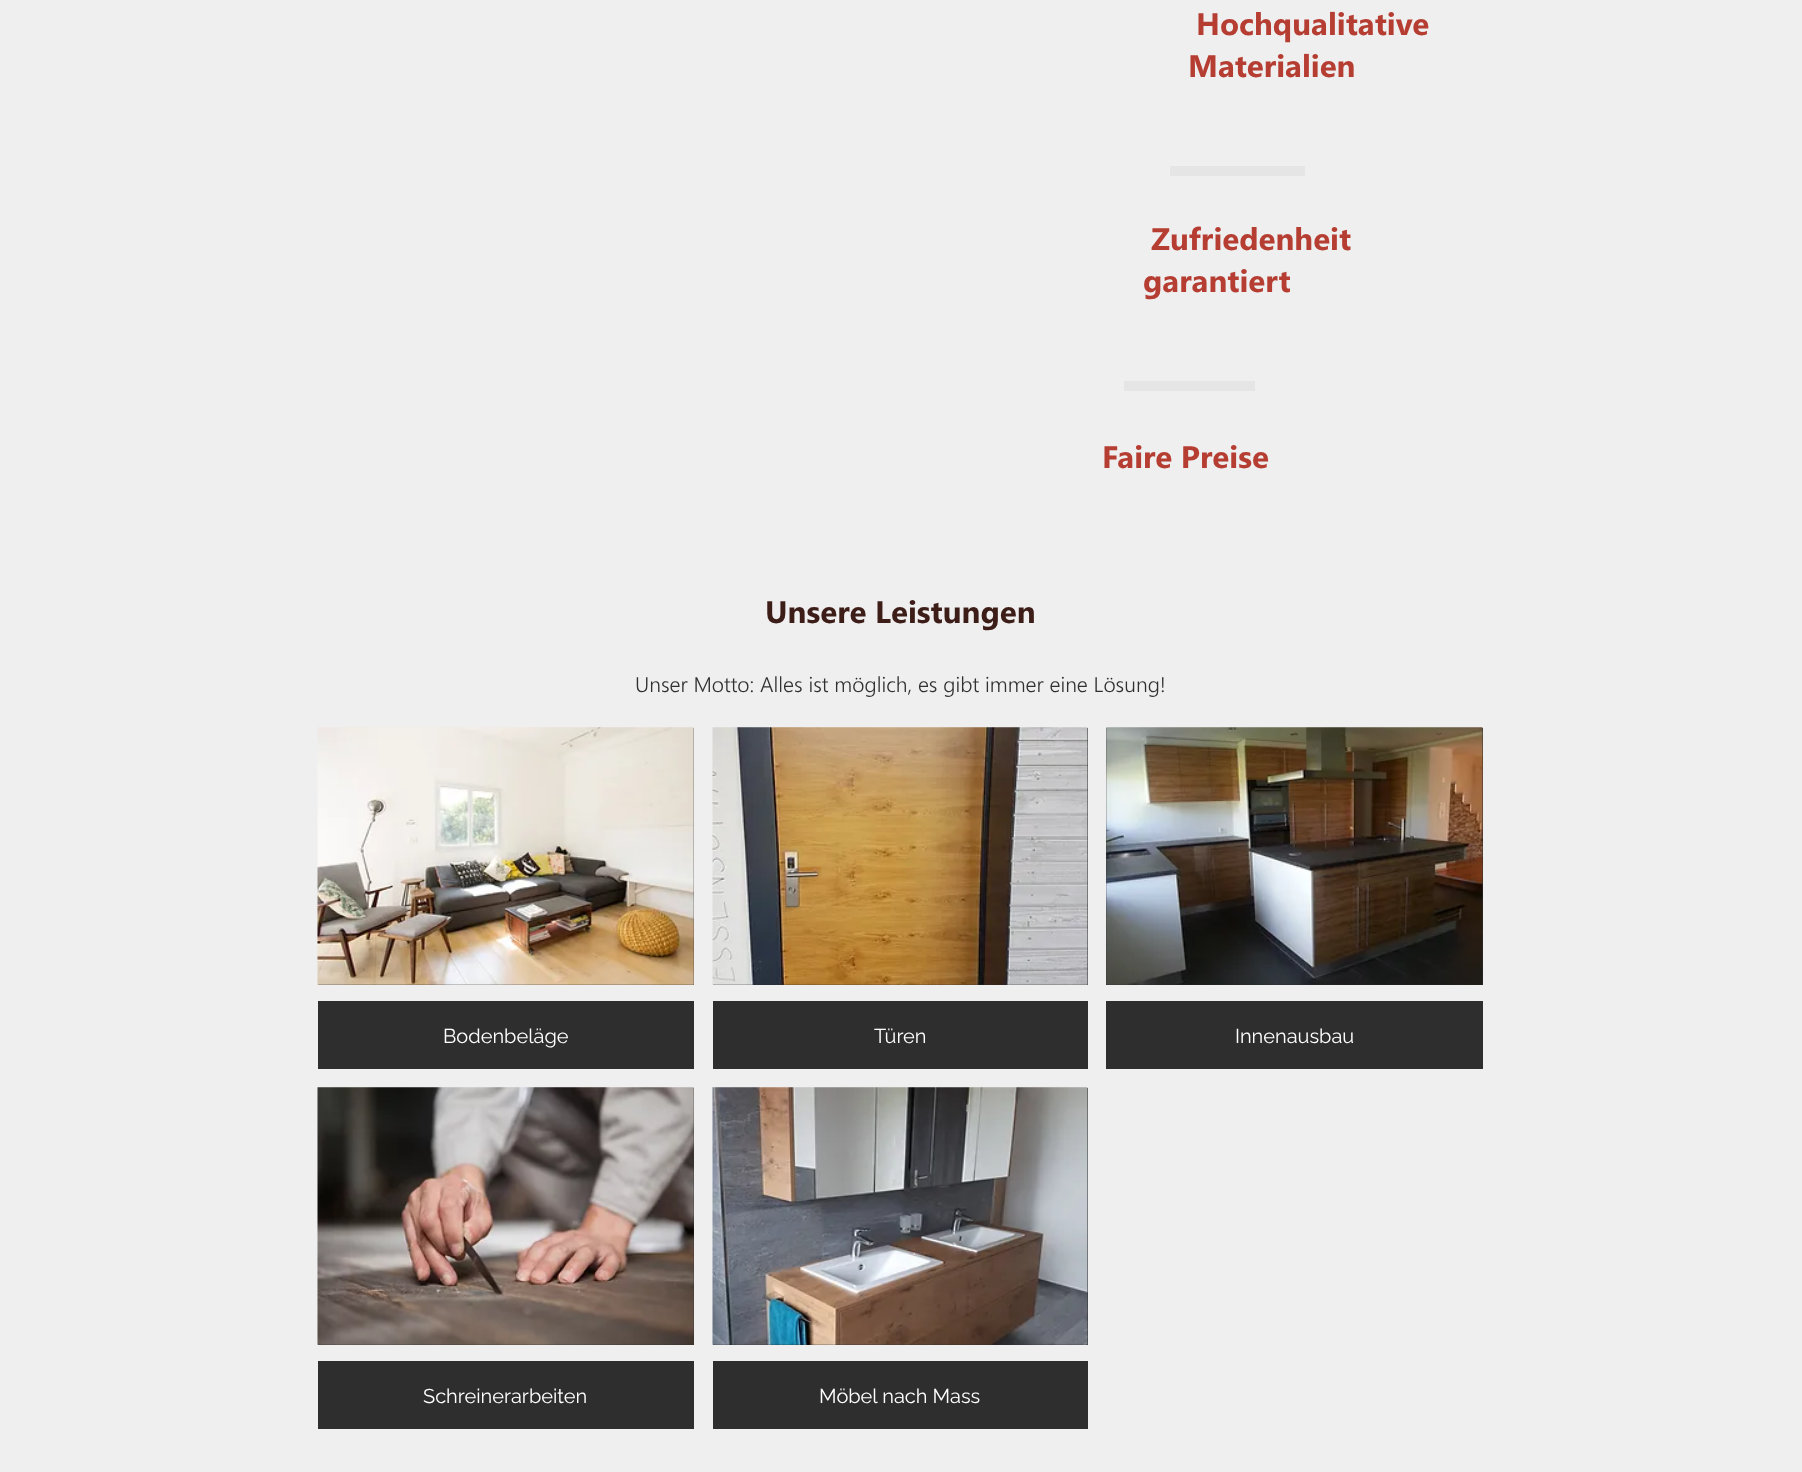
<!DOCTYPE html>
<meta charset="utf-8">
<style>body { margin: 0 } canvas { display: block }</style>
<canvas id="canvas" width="1802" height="1472"></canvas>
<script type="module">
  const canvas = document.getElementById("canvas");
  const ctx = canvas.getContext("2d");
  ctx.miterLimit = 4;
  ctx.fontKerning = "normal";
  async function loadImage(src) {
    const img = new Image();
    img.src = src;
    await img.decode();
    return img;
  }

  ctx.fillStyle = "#efefef";
  ctx.fillRect(0, 0, 1802, 1472);
  ctx.font = "bold 31.25px Segoe UI";
  ctx.fillStyle = "#b63d32";
  ctx.fillText("Hochqualitative", 1196, 35);
  ctx.fillText("Materialien", 1188, 77);
  ctx.fillStyle = "#e5e5e5";
  ctx.fillRect(1170, 166, 135, 10);
  ctx.fillStyle = "#b63d32";
  ctx.fillText("Zufriedenheit", 1151, 250);
  ctx.fillText("garantiert", 1143, 292);
  ctx.fillStyle = "#e5e5e5";
  ctx.fillRect(1124, 381, 131, 10);
  ctx.fillStyle = "#b63d32";
  ctx.fillText("Faire Preise", 1102, 468);
  ctx.fillStyle = "#3c1d17";
  ctx.fillText("Unsere Leistungen", 765, 623);
  ctx.font = "300 21.25px Segoe UI";
  ctx.fillStyle = "#303030";
  ctx.fillText("Unser Motto: Alles ist möglich, es gibt immer eine Lösung!", 635, 692);
  ctx.fillStyle = "#2f2e2e";
  ctx.fillRect(318, 728, 376, 257);
  ctx.drawImage(await loadImage("img1.png"), 317, 727, 377, 258);
  ctx.fillRect(318, 1001, 376, 68);
  ctx.font = "20px Raleway";
  ctx.fillStyle = "#ffffff";
  ctx.fillText("Bodenbeläge", 443, 1043);
  ctx.fillStyle = "#2f2e2e";
  ctx.fillRect(713, 728, 375, 257);
  ctx.drawImage(await loadImage("img2.png"), 712, 727, 376, 258);
  ctx.fillRect(713, 1001, 375, 68);
  ctx.fillStyle = "#ffffff";
  ctx.fillText("Türen", 874, 1043);
  ctx.fillStyle = "#2f2e2e";
  ctx.fillRect(1106, 728, 377, 257);
  ctx.drawImage(await loadImage("img3.png"), 1106, 727, 377, 258);
  ctx.fillRect(1106, 1001, 377, 68);
  ctx.fillStyle = "#ffffff";
  ctx.fillText("Innenausbau", 1235, 1043);
  ctx.fillStyle = "#2f2e2e";
  ctx.fillRect(318, 1088, 376, 257);
  ctx.drawImage(await loadImage("img4.png"), 317, 1087, 377, 258);
  ctx.fillRect(318, 1361, 376, 68);
  ctx.fillStyle = "#ffffff";
  ctx.fillText("Schreinerarbeiten", 423, 1403);
  ctx.fillStyle = "#2f2e2e";
  ctx.fillRect(713, 1088, 375, 257);
  ctx.drawImage(await loadImage("img5.png"), 712, 1087, 376, 258);
  ctx.fillRect(713, 1361, 375, 68);
  ctx.fillStyle = "#ffffff";
  ctx.fillText("Möbel nach Mass", 819, 1403);
</script>
